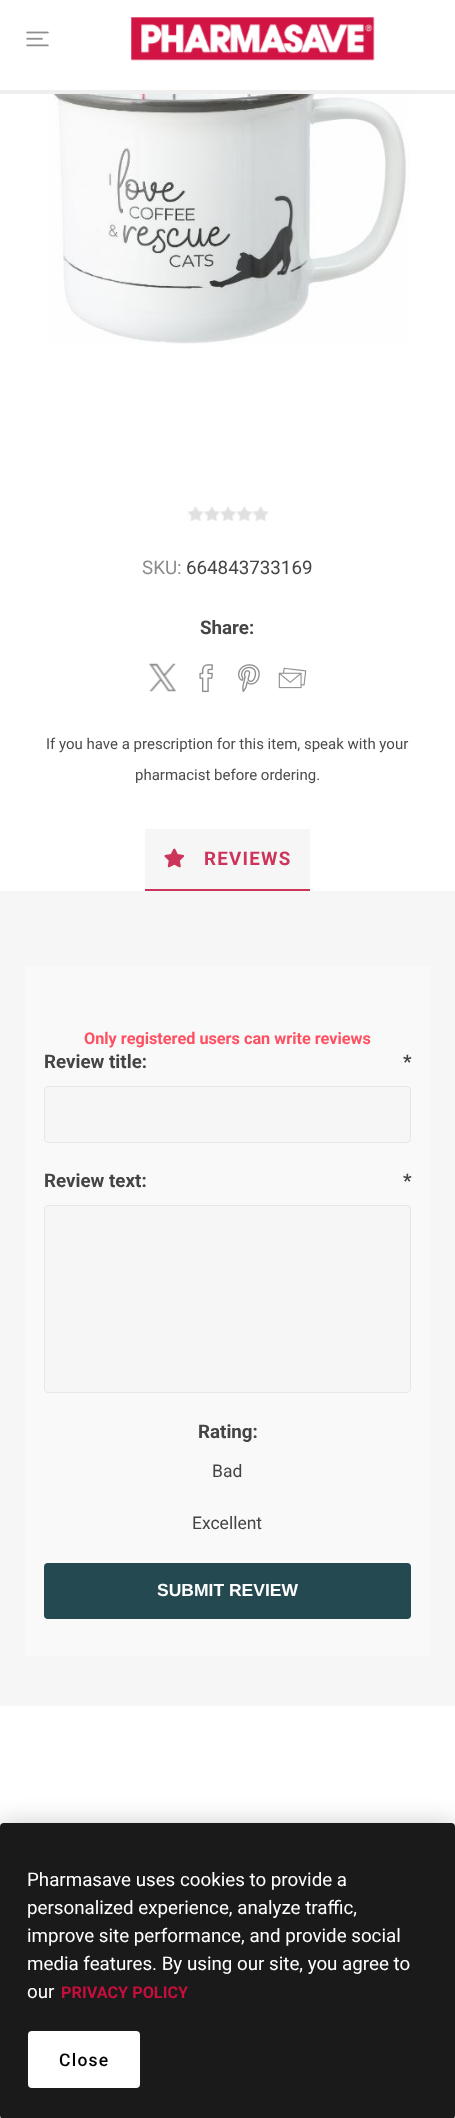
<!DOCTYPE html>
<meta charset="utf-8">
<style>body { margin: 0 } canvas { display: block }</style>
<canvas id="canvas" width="455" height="2118"></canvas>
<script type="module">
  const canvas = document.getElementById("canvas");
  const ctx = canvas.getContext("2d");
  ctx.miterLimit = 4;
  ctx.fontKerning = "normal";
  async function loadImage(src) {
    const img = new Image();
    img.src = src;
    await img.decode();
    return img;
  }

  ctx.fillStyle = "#ffffff";
  ctx.fillRect(0, 0, 455, 2118);
  ctx.fillStyle = "#eeeeee";
  ctx.fillRect(0, 90, 455, 4);
  ctx.drawImage(await loadImage("img1.png"), 26, 31, 23, 16);
  ctx.drawImage(await loadImage("img2.png"), 131, 17, 244, 44);
  ctx.drawImage(await loadImage("img3.png"), 46, 94, 364, 250);
  ctx.drawImage(await loadImage("img4.png"), 187, 506, 82, 16);
  ctx.font = "18.75px Roboto";
  ctx.fillStyle = "#8c8c8c";
  ctx.fillText("SKU:", 142, 574);
  ctx.fillStyle = "#444444";
  ctx.fillText("664843733169", 186, 574);
  ctx.font = "bold 18.75px Roboto";
  ctx.fillText("Share:", 200, 634);
  ctx.drawImage(await loadImage("img5.png"), 148, 663, 29, 29);
  ctx.drawImage(await loadImage("img6.png"), 199, 664, 14, 29);
  ctx.drawImage(await loadImage("img7.png"), 238, 664, 22, 28);
  ctx.drawImage(await loadImage("img8.png"), 278, 667, 29, 22);
  ctx.font = "15px Roboto";
  ctx.fillStyle = "#4c4c4c";
  ctx.fillText("If you have a prescription for this item, speak with your", 46, 749);
  ctx.fillText("pharmacist before ordering.", 135, 780);
  ctx.fillStyle = "#f6f6f6";
  ctx.fillRect(145, 829, 165, 60);
  ctx.fillStyle = "#cc345a";
  ctx.fillRect(145, 889, 165, 2);
  ctx.drawImage(await loadImage("img9.png"), 164, 848, 21, 20);
  ctx.letterSpacing = "1.25px";
  ctx.font = "bold 18.75px Roboto";
  ctx.fillText("REVIEWS", 204, 865);
  ctx.fillStyle = "#f6f6f6";
  ctx.fillRect(0, 891, 455, 815);
  ctx.fillStyle = "#f9f9f9";
  ctx.fillRect(25, 966, 405, 690);
  ctx.letterSpacing = "0px";
  ctx.font = "bold 16.25px Roboto";
  ctx.fillStyle = "#ff4f60";
  ctx.fillText("Only registered users can write reviews", 84, 1044);
  ctx.font = "bold 18.75px Roboto";
  ctx.fillStyle = "#444444";
  ctx.fillText("Review title:", 44, 1068);
  ctx.fillText("*", 403, 1068);
  ctx.fillStyle = "#f6f6f6";
  ctx.beginPath();
  ctx.roundRect(44.5, 1086.5, 366, 56, 3.5);
  ctx.fill();
  ctx.strokeStyle = "#e7e7e7";
  ctx.stroke();
  ctx.fillStyle = "#444444";
  ctx.fillText("Review text:", 44, 1187);
  ctx.fillText("*", 403, 1187);
  ctx.fillStyle = "#f6f6f6";
  ctx.beginPath();
  ctx.roundRect(44.5, 1205.5, 366, 187, 3.5);
  ctx.fill();
  ctx.stroke();
  ctx.fillStyle = "#444444";
  ctx.fillText("Rating:", 198, 1438);
  ctx.font = "17.5px Roboto";
  ctx.fillText("Bad", 212, 1477);
  ctx.fillText("Excellent", 192, 1529);
  ctx.fillStyle = "#244951";
  ctx.beginPath();
  ctx.roundRect(44, 1563, 367, 56, 4);
  ctx.fill();
  ctx.font = "bold 17.5px Liberation Sans";
  ctx.fillStyle = "#ffffff";
  ctx.fillText("SUBMIT REVIEW", 157, 1596);
  ctx.fillStyle = "rgba(0, 0, 0, 0.2)";
  ctx.filter = "blur(12.5px)";
  ctx.beginPath();
  ctx.roundRect(0, 1823, 455, 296, 4);
  ctx.fill();
  ctx.filter = "none";
  ctx.fillStyle = "#1a1a1a";
  ctx.beginPath();
  ctx.roundRect(0, 1823, 455, 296, 4);
  ctx.fill();
  ctx.font = "18.75px Roboto";
  ctx.fillStyle = "#ffffff";
  ctx.fillText("Pharmasave uses cookies to provide a", 27, 1886);
  ctx.fillText("personalized experience, analyze traffic,", 27, 1914);
  ctx.fillText("improve site performance, and provide social", 27, 1942);
  ctx.fillText("media features. By using our site, you agree to", 27, 1970);
  ctx.fillText("our", 27, 1998);
  ctx.font = "bold 16.25px Roboto";
  ctx.fillStyle = "#c50f3c";
  ctx.fillText("PRIVACY POLICY", 61, 1998);
  ctx.fillStyle = "#ffffff";
  ctx.beginPath();
  ctx.roundRect(28, 2031, 112, 57, 4);
  ctx.fill();
  ctx.letterSpacing = "1.25px";
  ctx.font = "500 17.5px Roboto";
  ctx.fillStyle = "#000000";
  ctx.fillText("Close", 59, 2066);
</script>
